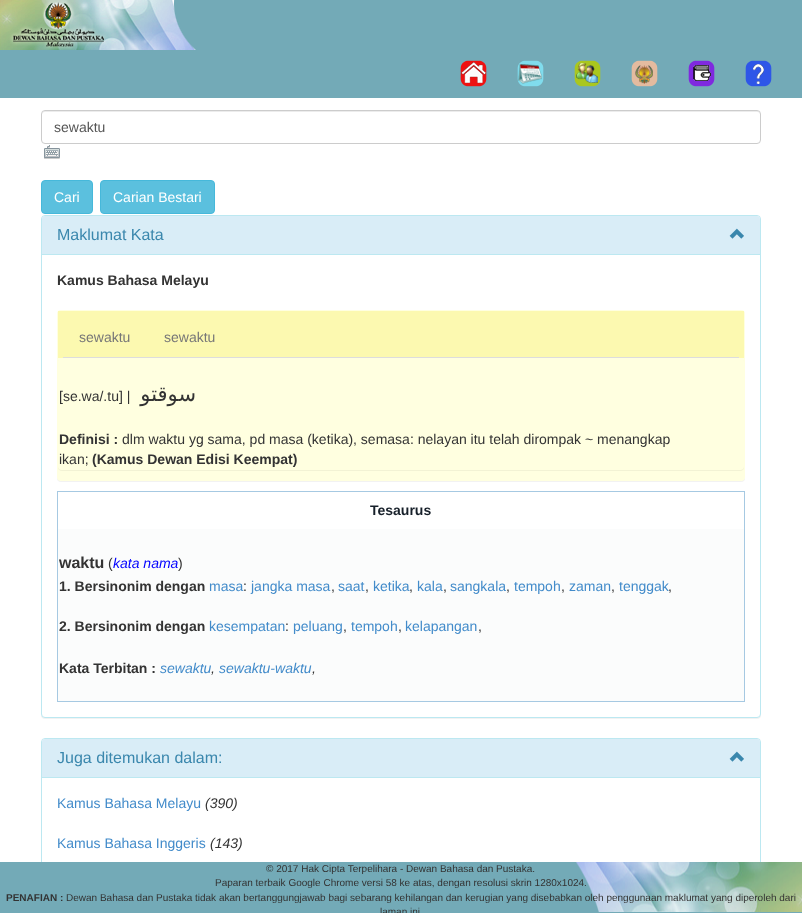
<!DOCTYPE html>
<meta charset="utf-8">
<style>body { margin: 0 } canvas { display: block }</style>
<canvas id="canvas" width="802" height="913"></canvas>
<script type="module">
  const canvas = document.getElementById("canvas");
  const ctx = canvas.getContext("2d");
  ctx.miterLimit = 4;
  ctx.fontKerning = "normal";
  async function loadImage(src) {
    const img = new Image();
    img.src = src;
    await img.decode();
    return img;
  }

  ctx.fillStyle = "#ffffff";
  ctx.fillRect(0, 0, 802, 913);
  ctx.fillStyle = "#73aab7";
  ctx.fillRect(0, 0, 802, 98);
  ctx.drawImage(await loadImage("img1.png"), 0, 0, 196, 50);
  ctx.drawImage(await loadImage("img2.png"), 460, 60, 27, 27);
  ctx.drawImage(await loadImage("img3.png"), 517, 60, 27, 27);
  ctx.drawImage(await loadImage("img4.png"), 574, 60, 27, 27);
  ctx.drawImage(await loadImage("img5.png"), 631, 60, 27, 27);
  ctx.drawImage(await loadImage("img6.png"), 688, 60, 27, 27);
  ctx.drawImage(await loadImage("img7.png"), 745, 60, 27, 27);
  ctx.fillStyle = "#ececec";
  ctx.beginPath();
  ctx.moveTo(45, 112);
  ctx.lineTo(757, 112);
  ctx.bezierCurveTo(759, 112, 760, 113, 760, 115);
  ctx.bezierCurveTo(760, 113, 759, 111, 757, 111);
  ctx.lineTo(45, 111);
  ctx.bezierCurveTo(43, 111, 42, 113, 42, 115);
  ctx.bezierCurveTo(42, 113, 43, 112, 45, 112);
  ctx.closePath();
  ctx.fill();
  ctx.beginPath();
  ctx.roundRect(41.5, 110.5, 719, 33, 3.5);
  ctx.strokeStyle = "#cccccc";
  ctx.stroke();
  ctx.font = "14px Liberation Sans";
  ctx.fillStyle = "#555555";
  ctx.fillText("sewaktu", 54, 132);
  ctx.drawImage(await loadImage("img8.png"), 44, 145, 16, 14);
  ctx.fillStyle = "#5bc0de";
  ctx.beginPath();
  ctx.roundRect(41.5, 180.5, 51, 33, 3.5);
  ctx.fill();
  ctx.strokeStyle = "#46b8da";
  ctx.stroke();
  ctx.fillStyle = "#ffffff";
  ctx.fillText("Cari", 54, 202);
  ctx.fillStyle = "#5bc0de";
  ctx.beginPath();
  ctx.roundRect(100.5, 180.5, 114, 33, 3.5);
  ctx.fill();
  ctx.stroke();
  ctx.fillStyle = "#ffffff";
  ctx.fillText("Carian Bestari", 113, 202);
  ctx.fillStyle = "rgba(0, 0, 0, 0.05)";
  ctx.filter = "blur(0.5px)";
  ctx.beginPath();
  ctx.roundRect(41, 216, 720, 503, 4);
  ctx.fill();
  ctx.filter = "none";
  ctx.fillStyle = "#ffffff";
  ctx.beginPath();
  ctx.roundRect(41.5, 215.5, 719, 502, 3.5);
  ctx.fill();
  ctx.strokeStyle = "#bce8f1";
  ctx.stroke();
  ctx.fillStyle = "#d9edf7";
  ctx.beginPath();
  ctx.roundRect(42, 216, 718, 39, [3, 3, 0, 0]);
  ctx.fill();
  ctx.fillStyle = "#bce8f1";
  ctx.fillRect(42, 254, 718, 1);
  ctx.font = "16px Liberation Sans";
  ctx.fillStyle = "#3a87ad";
  ctx.fillText("Maklumat Kata", 57, 240);
  ctx.drawImage(await loadImage("img9.png"), 729, 228, 15, 11);
  ctx.font = "bold 14px Liberation Sans";
  ctx.fillStyle = "#333333";
  ctx.fillText("Kamus Bahasa Melayu", 57, 285);
  ctx.fillStyle = "rgba(0, 0, 0, 0.05)";
  ctx.filter = "blur(0.5px)";
  ctx.beginPath();
  ctx.roundRect(57, 311, 688, 171, 4);
  ctx.fill();
  ctx.filter = "none";
  ctx.fillStyle = "#ffffe0";
  ctx.beginPath();
  ctx.roundRect(57, 310, 688, 171, 4);
  ctx.fill();
  ctx.fillStyle = "#fcf9b0";
  ctx.fillRect(58, 311, 686, 47);
  ctx.fillStyle = "#dddddd";
  ctx.fillRect(63, 357, 676, 1);
  ctx.font = "14px Liberation Sans";
  ctx.fillStyle = "#777777";
  ctx.fillText("sewaktu", 79, 342);
  ctx.fillText("sewaktu", 164, 342);
  ctx.fillStyle = "rgba(0, 0, 0, 0.05)";
  ctx.filter = "blur(0.5px)";
  ctx.beginPath();
  ctx.roundRect(58, 359, 686, 112, 4);
  ctx.fill();
  ctx.filter = "none";
  ctx.fillStyle = "#ffffe0";
  ctx.beginPath();
  ctx.roundRect(58, 358, 686, 112, 4);
  ctx.fill();
  ctx.fillStyle = "#333333";
  ctx.fillText("[se.wa/.tu] |", 59, 401);
  ctx.direction = "rtl";
  ctx.font = "21px DejaVu Sans";
  ctx.fillText("سوقتو", 196, 401);
  ctx.direction = "ltr";
  ctx.font = "bold 14px Liberation Sans";
  ctx.fillText("Definisi :", 59, 444);
  ctx.font = "14px Liberation Sans";
  ctx.fillText("dlm waktu yg sama, pd masa (ketika), semasa: nelayan itu telah dirompak ~ menangkap", 122, 444);
  ctx.fillText("ikan;", 59, 464);
  ctx.font = "bold 14px Liberation Sans";
  ctx.fillText("(Kamus Dewan Edisi Keempat)", 92, 464);
  ctx.fillStyle = "#a6c9e2";
  ctx.fillRect(57, 491, 688, 1);
  ctx.fillRect(744, 491, 1, 211);
  ctx.fillRect(57, 701, 688, 1);
  ctx.fillRect(57, 491, 1, 211);
  ctx.fillStyle = "#17202a";
  ctx.fillText("Tesaurus", 370, 515);
  ctx.fillStyle = "#fbfcfc";
  ctx.fillRect(58, 529, 686, 172);
  ctx.font = "bold 16px Liberation Sans";
  ctx.fillStyle = "#333333";
  ctx.fillText("waktu", 59, 568);
  ctx.font = "14px Liberation Sans";
  ctx.fillText("(", 108, 568);
  ctx.font = "italic 14px Liberation Sans";
  ctx.fillStyle = "#0000ff";
  ctx.fillText("kata nama", 113, 568);
  ctx.font = "14px Liberation Sans";
  ctx.fillStyle = "#333333";
  ctx.fillText(")", 178, 568);
  ctx.font = "bold 14px Liberation Sans";
  ctx.fillText("1. Bersinonim dengan", 59, 591);
  ctx.font = "14px Liberation Sans";
  ctx.fillStyle = "#428bca";
  ctx.fillText("masa", 209, 591);
  ctx.fillStyle = "#333333";
  ctx.fillText(":", 243, 591);
  ctx.fillStyle = "#428bca";
  ctx.fillText("jangka masa", 251, 591);
  ctx.fillStyle = "#333333";
  ctx.fillText(",", 331, 591);
  ctx.fillStyle = "#428bca";
  ctx.fillText("saat", 338, 591);
  ctx.fillStyle = "#333333";
  ctx.fillText(",", 365, 591);
  ctx.fillStyle = "#428bca";
  ctx.fillText("ketika", 373, 591);
  ctx.fillStyle = "#333333";
  ctx.fillText(",", 409, 591);
  ctx.fillStyle = "#428bca";
  ctx.fillText("kala", 417, 591);
  ctx.fillStyle = "#333333";
  ctx.fillText(",", 443, 591);
  ctx.fillStyle = "#428bca";
  ctx.fillText("sangkala", 450, 591);
  ctx.fillStyle = "#333333";
  ctx.fillText(",", 506, 591);
  ctx.fillStyle = "#428bca";
  ctx.fillText("tempoh", 514, 591);
  ctx.fillStyle = "#333333";
  ctx.fillText(",", 561, 591);
  ctx.fillStyle = "#428bca";
  ctx.fillText("zaman", 569, 591);
  ctx.fillStyle = "#333333";
  ctx.fillText(",", 611, 591);
  ctx.fillStyle = "#428bca";
  ctx.fillText("tenggak", 619, 591);
  ctx.fillStyle = "#333333";
  ctx.fillText(",", 668, 591);
  ctx.font = "bold 14px Liberation Sans";
  ctx.fillText("2. Bersinonim dengan", 59, 631);
  ctx.font = "14px Liberation Sans";
  ctx.fillStyle = "#428bca";
  ctx.fillText("kesempatan", 209, 631);
  ctx.fillStyle = "#333333";
  ctx.fillText(":", 285, 631);
  ctx.fillStyle = "#428bca";
  ctx.fillText("peluang", 293, 631);
  ctx.fillStyle = "#333333";
  ctx.fillText(",", 343, 631);
  ctx.fillStyle = "#428bca";
  ctx.fillText("tempoh", 351, 631);
  ctx.fillStyle = "#333333";
  ctx.fillText(",", 398, 631);
  ctx.fillStyle = "#428bca";
  ctx.fillText("kelapangan", 405, 631);
  ctx.fillStyle = "#333333";
  ctx.fillText(",", 478, 631);
  ctx.font = "bold 14px Liberation Sans";
  ctx.fillText("Kata Terbitan :", 59, 673);
  ctx.font = "italic 14px Liberation Sans";
  ctx.fillStyle = "#428bca";
  ctx.fillText("sewaktu", 160, 673);
  ctx.fillStyle = "#333333";
  ctx.fillText(",", 211, 673);
  ctx.fillStyle = "#428bca";
  ctx.fillText("sewaktu-waktu", 219, 673);
  ctx.fillStyle = "#333333";
  ctx.fillText(",", 312, 673);
  ctx.beginPath();
  ctx.roundRect(41.5, 738.5, 719, 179, 3.5);
  ctx.stroke();
  ctx.fillStyle = "#d9edf7";
  ctx.beginPath();
  ctx.roundRect(42, 739, 718, 39, [3, 3, 0, 0]);
  ctx.fill();
  ctx.fillStyle = "#bce8f1";
  ctx.fillRect(42, 777, 718, 1);
  ctx.font = "16px Liberation Sans";
  ctx.fillStyle = "#3a87ad";
  ctx.fillText("Juga ditemukan dalam:", 57, 763);
  ctx.drawImage(await loadImage("img9.png"), 729, 751, 15, 11);
  ctx.font = "14px Liberation Sans";
  ctx.fillStyle = "#428bca";
  ctx.fillText("Kamus Bahasa Melayu", 57, 808);
  ctx.font = "italic 14px Liberation Sans";
  ctx.fillStyle = "#333333";
  ctx.fillText("(390)", 205, 808);
  ctx.font = "14px Liberation Sans";
  ctx.fillStyle = "#428bca";
  ctx.fillText("Kamus Bahasa Inggeris", 57, 848);
  ctx.font = "italic 14px Liberation Sans";
  ctx.fillStyle = "#333333";
  ctx.fillText("(143)", 210, 848);
  ctx.fillStyle = "#73aab7";
  ctx.fillRect(0, 862, 802, 51);
  ctx.drawImage(await loadImage("img10.png"), 576, 862, 226, 50);
  ctx.font = "10px Liberation Sans";
  ctx.fillStyle = "#333333";
  ctx.fillText("© 2017 Hak Cipta Terpelihara - Dewan Bahasa dan Pustaka.", 266, 872);
  ctx.fillText("Paparan terbaik Google Chrome versi 58 ke atas, dengan resolusi skrin 1280x1024.", 215, 886);
  ctx.font = "bold 10px Liberation Sans";
  ctx.fillText("PENAFIAN :", 6, 901);
  ctx.font = "10px Liberation Sans";
  ctx.fillText("Dewan Bahasa dan Pustaka tidak akan bertanggungjawab bagi sebarang kehilangan dan kerugian yang disebabkan oleh penggunaan maklumat yang diperoleh dari", 66, 901);
  ctx.fillText("laman ini", 380, 915);
</script>
